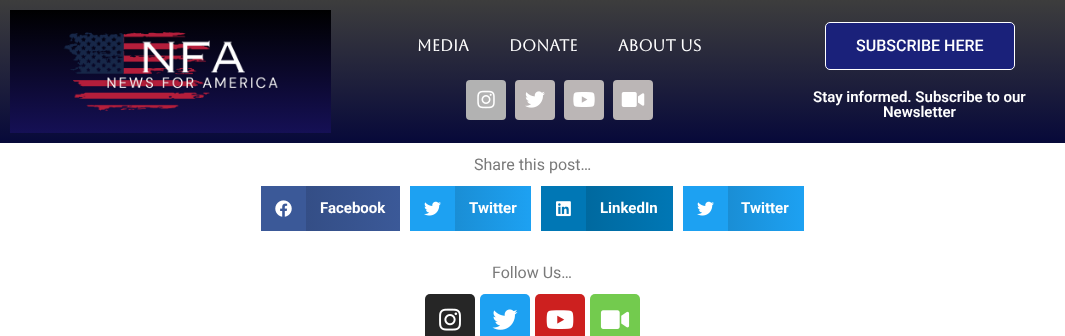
<!DOCTYPE html>
<meta charset="utf-8">
<style>body { margin: 0 } canvas { display: block }</style>
<canvas id="canvas" width="1065" height="336"></canvas>
<script type="module">
  const canvas = document.getElementById("canvas");
  const ctx = canvas.getContext("2d");
  ctx.miterLimit = 4;
  ctx.fontKerning = "normal";
  async function loadImage(src) {
    const img = new Image();
    img.src = src;
    await img.decode();
    return img;
  }
  let gradient;

  ctx.fillStyle = "#ffffff";
  ctx.fillRect(0, 0, 1065, 336);
  gradient = ctx.createLinearGradient(533, 0, 533, 143);
  gradient.addColorStop(0, "#3d3d3d");
  gradient.addColorStop(1, "#07093a");
  ctx.fillStyle = gradient;
  ctx.fillRect(0, 0, 1065, 143);
  gradient = ctx.createLinearGradient(171, 10, 171, 133);
  gradient.addColorStop(0, "#000000");
  gradient.addColorStop(1, "#151055");
  ctx.fillStyle = gradient;
  ctx.fillRect(10, 10, 321, 123);
  ctx.drawImage(await loadImage("img1.png"), 63, 32, 215, 79);
  ctx.font = "bold 16px Aboreto";
  ctx.fillStyle = "#ffffff";
  ctx.fillText("MEDIA", 417, 51);
  ctx.fillText("DONATE", 509, 51);
  ctx.fillText("ABOUT US", 618, 51);
  ctx.fillStyle = "#b2b2b2";
  ctx.beginPath();
  ctx.roundRect(466, 80, 40, 40, 4);
  ctx.fill();
  ctx.drawImage(await loadImage("img2.png"), 477, 90, 18, 19);
  ctx.fillStyle = "#bbb6b6";
  ctx.beginPath();
  ctx.roundRect(515, 80, 40, 40, 4);
  ctx.fill();
  ctx.drawImage(await loadImage("img3.png"), 525, 91, 20, 17);
  ctx.beginPath();
  ctx.roundRect(564, 80, 40, 40, 4);
  ctx.fill();
  ctx.drawImage(await loadImage("img4.png"), 573, 92, 22, 15);
  ctx.beginPath();
  ctx.roundRect(613, 80, 40, 40, 4);
  ctx.fill();
  ctx.drawImage(await loadImage("img5.png"), 621, 92, 24, 15);
  ctx.fillStyle = "#1a217a";
  ctx.beginPath();
  ctx.roundRect(825.5, 22.5, 189, 47, 4.5);
  ctx.fill();
  ctx.strokeStyle = "#ffffff";
  ctx.stroke();
  ctx.font = "500 16px Roboto";
  ctx.fillStyle = "#ffffff";
  ctx.fillText("SUBSCRIBE HERE", 856, 51);
  ctx.font = "600 15px Roboto";
  ctx.fillText("Stay informed. Subscribe to our", 813, 102);
  ctx.fillText("Newsletter", 883, 117);
  ctx.font = "16px Roboto";
  ctx.fillStyle = "#7a7a7a";
  ctx.fillText("Share this post…", 474, 170);
  ctx.fillStyle = "#3b5998";
  ctx.fillRect(261, 186, 45, 45);
  ctx.drawImage(await loadImage("img6.png"), 275, 200, 17, 17);
  gradient = ctx.createLinearGradient(306, 209, 400, 209);
  gradient.addColorStop(0, "#344e86");
  gradient.addColorStop(1, "#3b5998");
  ctx.fillStyle = gradient;
  ctx.fillRect(306, 186, 94, 45);
  ctx.font = "bold 15px Roboto";
  ctx.fillStyle = "#ffffff";
  ctx.fillText("Facebook", 320, 213);
  ctx.fillStyle = "#1da1f2";
  ctx.fillRect(410, 186, 45, 45);
  ctx.drawImage(await loadImage("img7.png"), 424, 201, 17, 15);
  gradient = ctx.createLinearGradient(455, 209, 531, 209);
  gradient.addColorStop(0, "#1a8ed5");
  gradient.addColorStop(1, "#1da1f2");
  ctx.fillStyle = gradient;
  ctx.fillRect(455, 186, 76, 45);
  ctx.fillStyle = "#ffffff";
  ctx.fillText("Twitter", 469, 213);
  ctx.fillStyle = "#0077b5";
  ctx.fillRect(541, 186, 45, 45);
  ctx.drawImage(await loadImage("img8.png"), 556, 201, 15, 16);
  gradient = ctx.createLinearGradient(586, 209, 673, 209);
  gradient.addColorStop(0, "#00699f");
  gradient.addColorStop(1, "#0077b5");
  ctx.fillStyle = gradient;
  ctx.fillRect(586, 186, 87, 45);
  ctx.fillStyle = "#ffffff";
  ctx.fillText("LinkedIn", 600, 213);
  ctx.fillStyle = "#1da1f2";
  ctx.fillRect(683, 186, 45, 45);
  ctx.drawImage(await loadImage("img7.png"), 697, 201, 17, 15);
  gradient = ctx.createLinearGradient(728, 209, 804, 209);
  gradient.addColorStop(0, "#1a8ed5");
  gradient.addColorStop(1, "#1da1f2");
  ctx.fillStyle = gradient;
  ctx.fillRect(728, 186, 76, 45);
  ctx.fillStyle = "#ffffff";
  ctx.fillText("Twitter", 741, 213);
  ctx.font = "16px Roboto";
  ctx.fillStyle = "#7a7a7a";
  ctx.fillText("Follow Us…", 492, 278);
  ctx.fillStyle = "#262626";
  ctx.beginPath();
  ctx.roundRect(425, 294, 50, 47, 5);
  ctx.fill();
  ctx.drawImage(await loadImage("img9.png"), 439, 308, 22, 23);
  ctx.fillStyle = "#1da1f2";
  ctx.beginPath();
  ctx.roundRect(480, 294, 50, 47, 5);
  ctx.fill();
  ctx.drawImage(await loadImage("img10.png"), 492, 309, 26, 21);
  ctx.fillStyle = "#cd201f";
  ctx.beginPath();
  ctx.roundRect(535, 294, 50, 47, 5);
  ctx.fill();
  ctx.drawImage(await loadImage("img11.png"), 546, 310, 28, 19);
  ctx.fillStyle = "#73cb4e";
  ctx.beginPath();
  ctx.roundRect(590, 294, 50, 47, 5);
  ctx.fill();
  ctx.drawImage(await loadImage("img12.png"), 600, 310, 30, 19);
</script>
